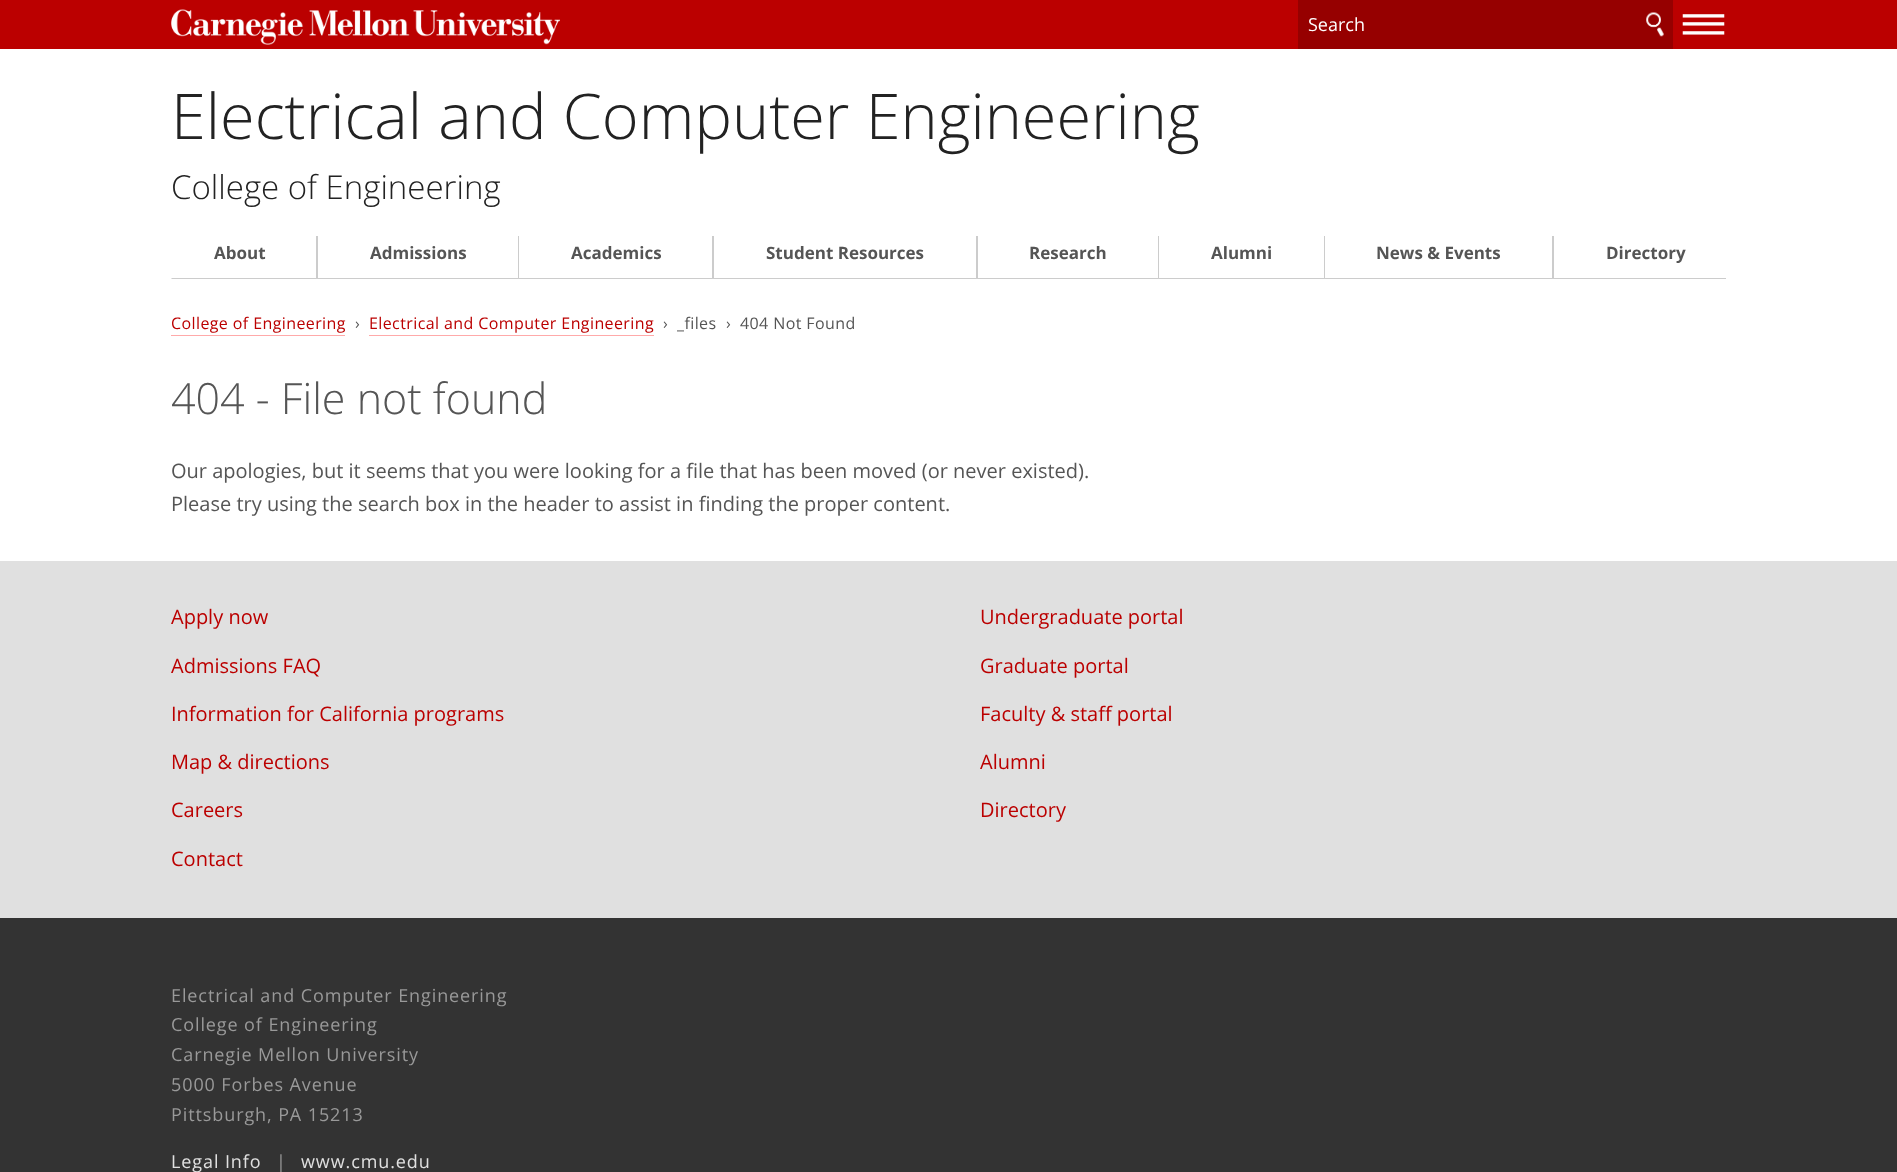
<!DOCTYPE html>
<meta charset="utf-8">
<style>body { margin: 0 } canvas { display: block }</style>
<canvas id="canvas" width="1897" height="1172"></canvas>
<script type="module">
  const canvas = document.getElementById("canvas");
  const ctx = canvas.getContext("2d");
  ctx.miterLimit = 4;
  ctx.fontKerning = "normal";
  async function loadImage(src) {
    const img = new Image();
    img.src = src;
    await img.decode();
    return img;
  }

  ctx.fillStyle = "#ffffff";
  ctx.fillRect(0, 0, 1897, 1172);
  ctx.fillStyle = "#bb0000";
  ctx.fillRect(0, 0, 1897, 49);
  ctx.drawImage(await loadImage("img1.png"), 171, 9, 389, 36);
  ctx.fillStyle = "#960000";
  ctx.fillRect(1298, 0, 375, 49);
  ctx.font = "18px Open Sans";
  ctx.fillStyle = "#ffffff";
  ctx.fillText("Search", 1308, 31);
  ctx.drawImage(await loadImage("img2.png"), 1646, 12, 18, 25);
  ctx.letterSpacing = "1px";
  ctx.font = "45px Open Sans";
  ctx.fillText("—", 1681, 28);
  ctx.fillText("—", 1681, 36);
  ctx.fillText("—", 1681, 45);
  ctx.letterSpacing = "0px";
  ctx.font = "300 63px Open Sans";
  ctx.fillStyle = "#222222";
  ctx.fillText("Electrical and Computer Engineering", 171, 139);
  ctx.font = "300 33px Open Sans";
  ctx.fillText("College of Engineering", 171, 199);
  ctx.fillStyle = "#cccccc";
  ctx.beginPath();
  ctx.moveTo(316, 279);
  ctx.lineTo(171, 279);
  ctx.lineTo(172, 278);
  ctx.lineTo(316, 278);
  ctx.closePath();
  ctx.fill();
  ctx.font = "bold 17px Open Sans";
  ctx.fillStyle = "#555555";
  ctx.fillText("About", 214, 259);
  ctx.fillStyle = "#cccccc";
  ctx.beginPath();
  ctx.moveTo(518, 279);
  ctx.lineTo(316, 279);
  ctx.lineTo(318, 278);
  ctx.lineTo(518, 278);
  ctx.closePath();
  ctx.fill();
  ctx.fillStyle = "rgba(0, 0, 0, 0.2)";
  ctx.beginPath();
  ctx.moveTo(316, 279);
  ctx.lineTo(316, 236);
  ctx.lineTo(318, 236);
  ctx.lineTo(318, 278);
  ctx.closePath();
  ctx.fill();
  ctx.fillStyle = "#555555";
  ctx.fillText("Admissions", 370, 259);
  ctx.fillStyle = "#cccccc";
  ctx.beginPath();
  ctx.moveTo(712, 279);
  ctx.lineTo(518, 279);
  ctx.lineTo(519, 278);
  ctx.lineTo(712, 278);
  ctx.closePath();
  ctx.fill();
  ctx.fillStyle = "rgba(0, 0, 0, 0.2)";
  ctx.beginPath();
  ctx.moveTo(518, 279);
  ctx.lineTo(518, 236);
  ctx.lineTo(519, 236);
  ctx.lineTo(519, 278);
  ctx.closePath();
  ctx.fill();
  ctx.fillStyle = "#555555";
  ctx.fillText("Academics", 571, 259);
  ctx.fillStyle = "#cccccc";
  ctx.beginPath();
  ctx.moveTo(976, 279);
  ctx.lineTo(712, 279);
  ctx.lineTo(714, 278);
  ctx.lineTo(976, 278);
  ctx.closePath();
  ctx.fill();
  ctx.fillStyle = "rgba(0, 0, 0, 0.2)";
  ctx.beginPath();
  ctx.moveTo(712, 279);
  ctx.lineTo(712, 236);
  ctx.lineTo(714, 236);
  ctx.lineTo(714, 278);
  ctx.closePath();
  ctx.fill();
  ctx.fillStyle = "#555555";
  ctx.fillText("Student Resources", 766, 259);
  ctx.fillStyle = "#cccccc";
  ctx.beginPath();
  ctx.moveTo(1158, 279);
  ctx.lineTo(976, 279);
  ctx.lineTo(978, 278);
  ctx.lineTo(1158, 278);
  ctx.closePath();
  ctx.fill();
  ctx.fillStyle = "rgba(0, 0, 0, 0.2)";
  ctx.beginPath();
  ctx.moveTo(976, 279);
  ctx.lineTo(976, 236);
  ctx.lineTo(978, 236);
  ctx.lineTo(978, 278);
  ctx.closePath();
  ctx.fill();
  ctx.fillStyle = "#555555";
  ctx.fillText("Research", 1029, 259);
  ctx.fillStyle = "#cccccc";
  ctx.beginPath();
  ctx.moveTo(1324, 279);
  ctx.lineTo(1158, 279);
  ctx.lineTo(1159, 278);
  ctx.lineTo(1324, 278);
  ctx.closePath();
  ctx.fill();
  ctx.fillStyle = "rgba(0, 0, 0, 0.2)";
  ctx.beginPath();
  ctx.moveTo(1158, 279);
  ctx.lineTo(1158, 236);
  ctx.lineTo(1159, 236);
  ctx.lineTo(1159, 278);
  ctx.closePath();
  ctx.fill();
  ctx.fillStyle = "#555555";
  ctx.fillText("Alumni", 1211, 259);
  ctx.fillStyle = "#cccccc";
  ctx.beginPath();
  ctx.moveTo(1552, 279);
  ctx.lineTo(1324, 279);
  ctx.lineTo(1325, 278);
  ctx.lineTo(1552, 278);
  ctx.closePath();
  ctx.fill();
  ctx.fillStyle = "rgba(0, 0, 0, 0.2)";
  ctx.beginPath();
  ctx.moveTo(1324, 279);
  ctx.lineTo(1324, 236);
  ctx.lineTo(1325, 236);
  ctx.lineTo(1325, 278);
  ctx.closePath();
  ctx.fill();
  ctx.fillStyle = "#555555";
  ctx.fillText("News & Events", 1376, 259);
  ctx.fillStyle = "#cccccc";
  ctx.beginPath();
  ctx.moveTo(1726, 279);
  ctx.lineTo(1552, 279);
  ctx.lineTo(1554, 278);
  ctx.lineTo(1726, 278);
  ctx.closePath();
  ctx.fill();
  ctx.fillStyle = "rgba(0, 0, 0, 0.2)";
  ctx.beginPath();
  ctx.moveTo(1552, 279);
  ctx.lineTo(1552, 236);
  ctx.lineTo(1554, 236);
  ctx.lineTo(1554, 278);
  ctx.closePath();
  ctx.fill();
  ctx.fillStyle = "#555555";
  ctx.fillText("Directory", 1606, 259);
  ctx.letterSpacing = "0.4px";
  ctx.font = "16px Open Sans";
  ctx.fillStyle = "#bb0000";
  ctx.fillText("College of Engineering", 171, 329);
  ctx.fillStyle = "#ffaaaa";
  ctx.fillRect(171, 335, 174, 1);
  ctx.fillStyle = "#555555";
  ctx.fillText("›", 355, 329);
  ctx.fillStyle = "#bb0000";
  ctx.fillText("Electrical and Computer Engineering", 369, 329);
  ctx.fillStyle = "#ffaaaa";
  ctx.fillRect(369, 335, 285, 1);
  ctx.fillStyle = "#555555";
  ctx.fillText("›", 663, 329);
  ctx.fillText("_files", 677, 329);
  ctx.fillText("›", 726, 329);
  ctx.fillText("404 Not Found", 740, 329);
  ctx.letterSpacing = "0px";
  ctx.font = "300 43px Open Sans";
  ctx.fillText("404 - File not found", 171, 414);
  ctx.font = "20px Open Sans";
  ctx.fillText("Our apologies, but it seems that you were looking for a file that has been moved (or never existed).", 171, 478);
  ctx.fillText("Please try using the search box in the header to assist in finding the proper content.", 171, 511);
  ctx.fillStyle = "#e0e0e0";
  ctx.fillRect(0, 561, 1897, 357);
  ctx.fillStyle = "#bb0000";
  ctx.fillText("Apply now", 171, 624);
  ctx.fillText("Admissions FAQ", 171, 673);
  ctx.fillText("Information for California programs", 171, 721);
  ctx.fillText("Map & directions", 171, 769);
  ctx.fillText("Careers", 171, 817);
  ctx.fillText("Contact", 171, 866);
  ctx.fillText("Undergraduate portal", 980, 624);
  ctx.fillText("Graduate portal", 980, 673);
  ctx.fillText("Faculty & staff portal", 980, 721);
  ctx.fillText("Alumni", 980, 769);
  ctx.fillText("Directory", 980, 817);
  ctx.fillStyle = "#333333";
  ctx.fillRect(0, 918, 1897, 254);
  ctx.letterSpacing = "0.9px";
  ctx.font = "18px Open Sans";
  ctx.fillStyle = "#999999";
  ctx.fillText("Electrical and Computer Engineering", 171, 1002);
  ctx.fillText("College of Engineering", 171, 1031);
  ctx.fillText("Carnegie Mellon University", 171, 1061);
  ctx.fillText("5000 Forbes Avenue", 171, 1091);
  ctx.fillText("Pittsburgh, PA 15213", 171, 1121);
  ctx.fillStyle = "#e0e0e0";
  ctx.fillText("Legal Info", 171, 1168);
  ctx.fillStyle = "#999999";
  ctx.fillText("|", 276, 1168);
  ctx.fillStyle = "#e0e0e0";
  ctx.fillText("www.cmu.edu", 301, 1168);
</script>
